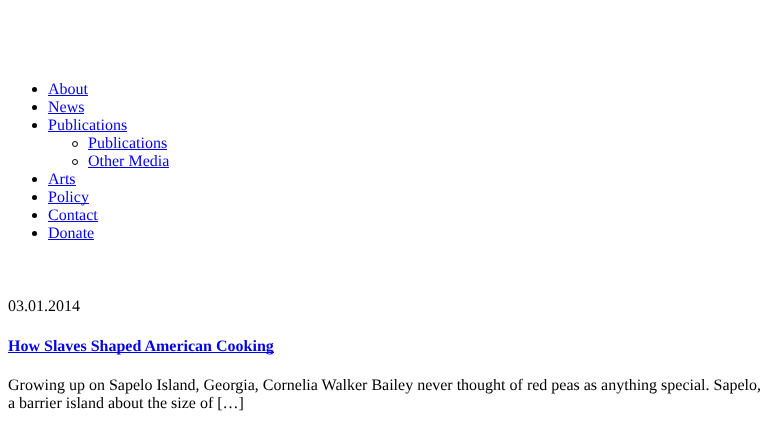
<!DOCTYPE html>
<meta charset="utf-8">
<style>body { margin: 0 } canvas { display: block }</style>
<canvas id="canvas" width="775" height="442"></canvas>
<script type="module">
  const canvas = document.getElementById("canvas");
  const ctx = canvas.getContext("2d");
  ctx.miterLimit = 4;
  ctx.fontKerning = "normal";

  ctx.fillStyle = "#ffffff";
  ctx.fillRect(0, 0, 775, 442);
  ctx.fillStyle = "#000000";
  ctx.beginPath();
  ctx.arc(34.5, 89.5, 2.5, 0, Math.PI * 2);
  ctx.fill();
  ctx.font = "16px Liberation Serif";
  ctx.fillStyle = "#0000ee";
  ctx.fillText("About", 48, 94);
  ctx.fillRect(48, 95, 40, 1);
  ctx.fillStyle = "#000000";
  ctx.beginPath();
  ctx.arc(34.5, 107.5, 2.5, 0, Math.PI * 2);
  ctx.fill();
  ctx.fillStyle = "#0000ee";
  ctx.fillText("News", 48, 112);
  ctx.fillRect(48, 113, 36, 1);
  ctx.fillStyle = "#000000";
  ctx.beginPath();
  ctx.arc(34.5, 125.5, 2.5, 0, Math.PI * 2);
  ctx.fill();
  ctx.fillStyle = "#0000ee";
  ctx.fillText("Publications", 48, 130);
  ctx.fillRect(48, 131, 79, 1);
  ctx.beginPath();
  ctx.arc(75, 144, 2.5, 0, Math.PI * 2);
  ctx.strokeStyle = "#000000";
  ctx.stroke();
  ctx.fillText("Publications", 88, 148);
  ctx.fillRect(88, 149, 79, 1);
  ctx.beginPath();
  ctx.arc(75, 162, 2.5, 0, Math.PI * 2);
  ctx.stroke();
  ctx.fillText("Other Media", 88, 166);
  ctx.fillRect(88, 167, 81, 1);
  ctx.fillStyle = "#000000";
  ctx.beginPath();
  ctx.arc(34.5, 179.5, 2.5, 0, Math.PI * 2);
  ctx.fill();
  ctx.fillStyle = "#0000ee";
  ctx.fillText("Arts", 48, 184);
  ctx.fillRect(48, 185, 28, 1);
  ctx.fillStyle = "#000000";
  ctx.beginPath();
  ctx.arc(34.5, 197.5, 2.5, 0, Math.PI * 2);
  ctx.fill();
  ctx.fillStyle = "#0000ee";
  ctx.fillRect(48, 203, 41, 1);
  ctx.fillText("Policy", 48, 202);
  ctx.fillStyle = "#000000";
  ctx.beginPath();
  ctx.arc(34.5, 215.5, 2.5, 0, Math.PI * 2);
  ctx.fill();
  ctx.fillStyle = "#0000ee";
  ctx.fillText("Contact", 48, 220);
  ctx.fillRect(48, 221, 50, 1);
  ctx.fillStyle = "#000000";
  ctx.beginPath();
  ctx.arc(34.5, 233.5, 2.5, 0, Math.PI * 2);
  ctx.fill();
  ctx.fillStyle = "#0000ee";
  ctx.fillText("Donate", 48, 238);
  ctx.fillRect(48, 239, 46, 1);
  ctx.fillStyle = "#000000";
  ctx.fillText("03.01.2014", 8, 311);
  ctx.fillStyle = "#0000ee";
  ctx.fillRect(8, 352, 266, 1);
  ctx.font = "bold 16px Liberation Serif";
  ctx.fillText("How Slaves Shaped American Cooking", 8, 351);
  ctx.font = "16px Liberation Serif";
  ctx.fillStyle = "#000000";
  ctx.fillText("Growing up on Sapelo Island, Georgia, Cornelia Walker Bailey never thought of red peas as anything special. Sapelo,", 8, 390);
  ctx.fillText("a barrier island about the size of […]", 8, 408);
</script>
